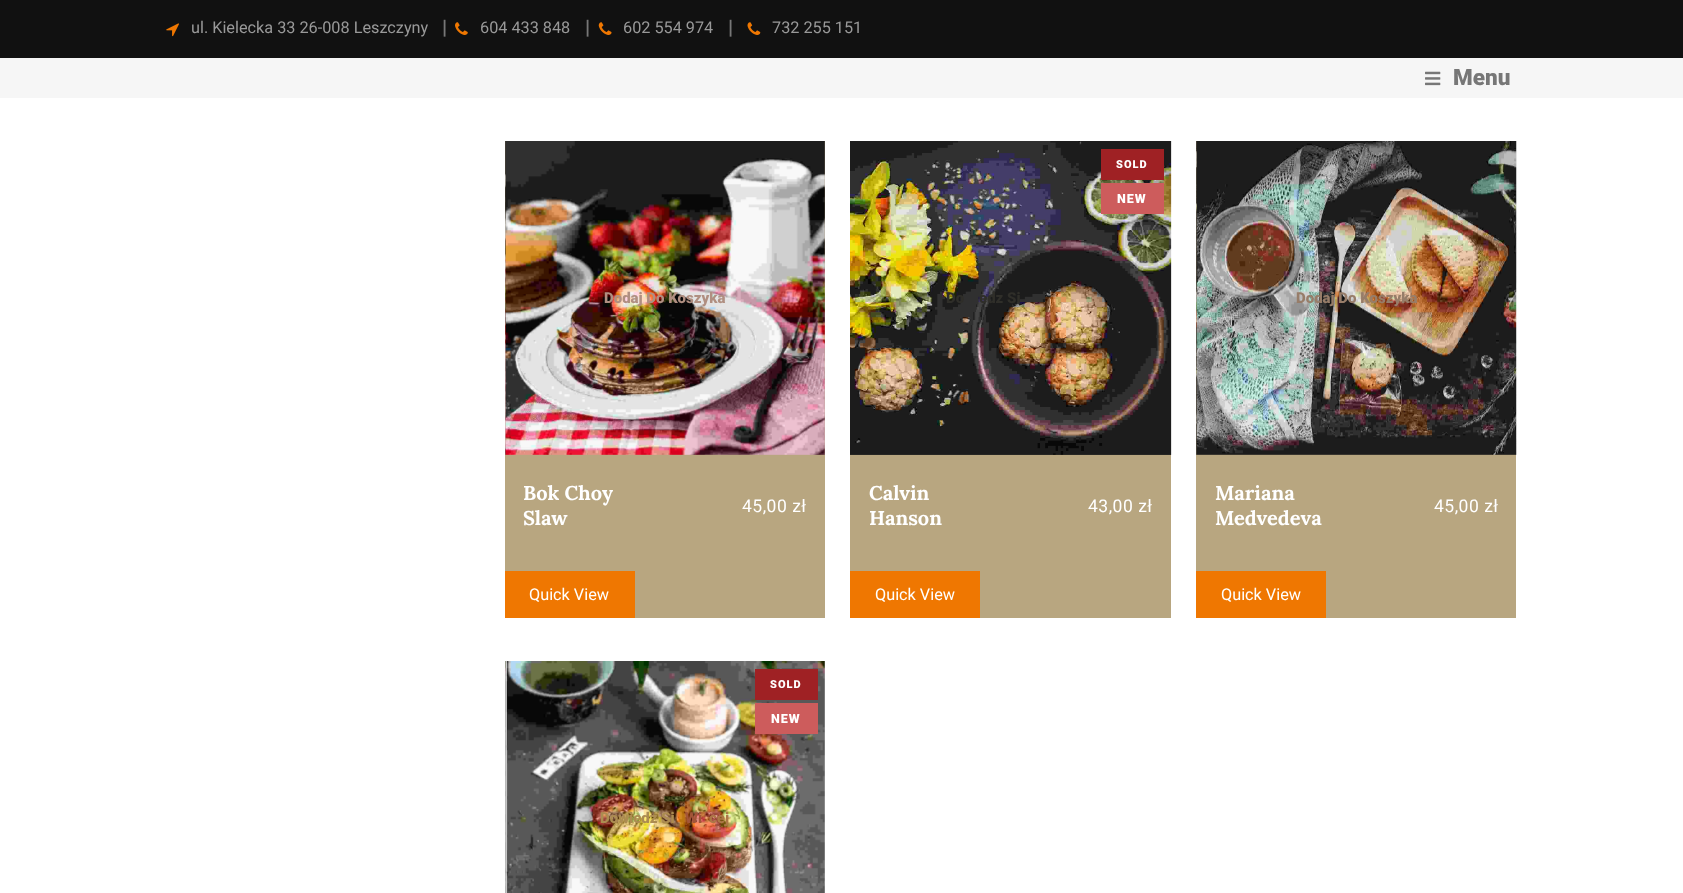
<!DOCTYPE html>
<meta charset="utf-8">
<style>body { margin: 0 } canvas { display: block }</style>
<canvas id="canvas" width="1683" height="893"></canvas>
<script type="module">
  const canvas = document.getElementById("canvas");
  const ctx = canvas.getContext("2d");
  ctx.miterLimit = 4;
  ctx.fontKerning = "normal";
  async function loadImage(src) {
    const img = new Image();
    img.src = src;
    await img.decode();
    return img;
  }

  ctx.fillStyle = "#ffffff";
  ctx.fillRect(0, 0, 1683, 893);
  ctx.fillStyle = "#111111";
  ctx.fillRect(0, 0, 1683, 58);
  ctx.drawImage(await loadImage("img1.png"), 166, 23, 13, 14);
  ctx.font = "16.25px Roboto";
  ctx.fillStyle = "#999999";
  ctx.fillText("ul. Kielecka 33 26-008 Leszczyny", 191, 33);
  ctx.font = "900 20px Roboto";
  ctx.fillStyle = "#777777";
  ctx.fillText("|", 442, 34);
  ctx.drawImage(await loadImage("img2.png"), 455, 22, 13, 13);
  ctx.font = "16.25px Roboto";
  ctx.fillStyle = "#999999";
  ctx.fillText("604 433 848", 480, 33);
  ctx.font = "900 20px Roboto";
  ctx.fillStyle = "#777777";
  ctx.fillText("|", 585, 34);
  ctx.drawImage(await loadImage("img3.png"), 598, 22, 14, 13);
  ctx.font = "16.25px Roboto";
  ctx.fillStyle = "#999999";
  ctx.fillText("602 554 974", 623, 33);
  ctx.font = "900 20px Roboto";
  ctx.fillStyle = "#777777";
  ctx.fillText("|", 728, 34);
  ctx.drawImage(await loadImage("img4.png"), 747, 22, 14, 13);
  ctx.font = "16.25px Roboto";
  ctx.fillStyle = "#999999";
  ctx.fillText("732 255 151", 772, 33);
  ctx.fillStyle = "#f6f6f6";
  ctx.fillRect(0, 58, 1683, 40);
  ctx.drawImage(await loadImage("img5.png"), 1425, 71, 16, 15);
  ctx.font = "900 22.5px Roboto";
  ctx.fillStyle = "#777777";
  ctx.fillText("Menu", 1453, 85);
  ctx.fillStyle = "#b8a680";
  ctx.fillRect(505, 141, 320, 477);
  ctx.drawImage(await loadImage("img6.png"), 505, 141, 320, 314);
  ctx.font = "900 15px Roboto";
  ctx.fillStyle = "#b08f81";
  ctx.fillText("Dodaj Do Koszyka", 604, 303);
  ctx.font = "bold 20px Lora";
  ctx.fillStyle = "#ffffff";
  ctx.fillText("Bok Choy", 523, 500);
  ctx.fillText("Slaw", 523, 525);
  ctx.letterSpacing = "0.5px";
  ctx.font = "17.5px Roboto";
  ctx.fillText("45,00 zł", 742, 512);
  ctx.fillStyle = "#ef7701";
  ctx.fillRect(505, 571, 130, 47);
  ctx.letterSpacing = "0px";
  ctx.font = "16.25px Roboto";
  ctx.fillStyle = "#ffffff";
  ctx.fillText("Quick View", 529, 600);
  ctx.fillStyle = "#b8a680";
  ctx.fillRect(850, 454, 321, 164);
  ctx.drawImage(await loadImage("img7.png"), 850, 141, 322, 314);
  ctx.fillStyle = "#9f2124";
  ctx.fillRect(1101, 149, 63, 31);
  ctx.letterSpacing = "1px";
  ctx.font = "900 11px Roboto";
  ctx.fillStyle = "#ffffff";
  ctx.fillText("SOLD", 1116, 168);
  ctx.fillStyle = "#cd5c5c";
  ctx.fillRect(1101, 183, 63, 31);
  ctx.font = "900 12.5px Roboto";
  ctx.fillStyle = "#ffffff";
  ctx.fillText("NEW", 1117, 203);
  ctx.letterSpacing = "0px";
  ctx.font = "900 15px Roboto";
  ctx.fillStyle = "#2f2e29";
  ctx.fillText("Do", 946, 303);
  ctx.fillText("edz Si", 979, 303);
  ctx.font = "bold 20px Lora";
  ctx.fillStyle = "#ffffff";
  ctx.fillText("Calvin", 869, 500);
  ctx.fillText("Hanson", 869, 525);
  ctx.letterSpacing = "0.5px";
  ctx.font = "17.5px Roboto";
  ctx.fillText("43,00 zł", 1088, 512);
  ctx.fillStyle = "#ef7701";
  ctx.fillRect(850, 571, 130, 47);
  ctx.letterSpacing = "0px";
  ctx.font = "16.25px Roboto";
  ctx.fillStyle = "#ffffff";
  ctx.fillText("Quick View", 875, 600);
  ctx.fillStyle = "#b8a680";
  ctx.fillRect(1196, 141, 320, 477);
  ctx.drawImage(await loadImage("img8.png"), 1196, 141, 321, 314);
  ctx.font = "900 15px Roboto";
  ctx.fillStyle = "#977d69";
  ctx.fillText("Dodaj Do Koszyka", 1296, 303);
  ctx.font = "bold 20px Lora";
  ctx.fillStyle = "#ffffff";
  ctx.fillText("Mariana", 1215, 500);
  ctx.fillText("Medvedeva", 1215, 525);
  ctx.letterSpacing = "0.5px";
  ctx.font = "17.5px Roboto";
  ctx.fillText("45,00 zł", 1434, 512);
  ctx.fillStyle = "#ef7701";
  ctx.fillRect(1196, 571, 130, 47);
  ctx.letterSpacing = "0px";
  ctx.font = "16.25px Roboto";
  ctx.fillStyle = "#ffffff";
  ctx.fillText("Quick View", 1221, 600);
  ctx.drawImage(await loadImage("img9.png"), 505, 661, 320, 232);
  ctx.fillStyle = "#9f2124";
  ctx.fillRect(755, 669, 63, 31);
  ctx.letterSpacing = "1px";
  ctx.font = "900 11px Roboto";
  ctx.fillStyle = "#ffffff";
  ctx.fillText("SOLD", 770, 688);
  ctx.fillStyle = "#cd5c5c";
  ctx.fillRect(755, 703, 63, 31);
  ctx.font = "900 12.5px Roboto";
  ctx.fillStyle = "#ffffff";
  ctx.fillText("NEW", 771, 723);
  ctx.letterSpacing = "0px";
  ctx.font = "900 15px Roboto";
  ctx.fillStyle = "#ac8c51";
  ctx.fillText("Dowiedz Si", 600, 823);
  ctx.fillStyle = "#a25538";
  ctx.fillText("Wi", 685, 823);
  ctx.fillStyle = "#ac7747";
  ctx.fillText("cej", 709, 823);
</script>
